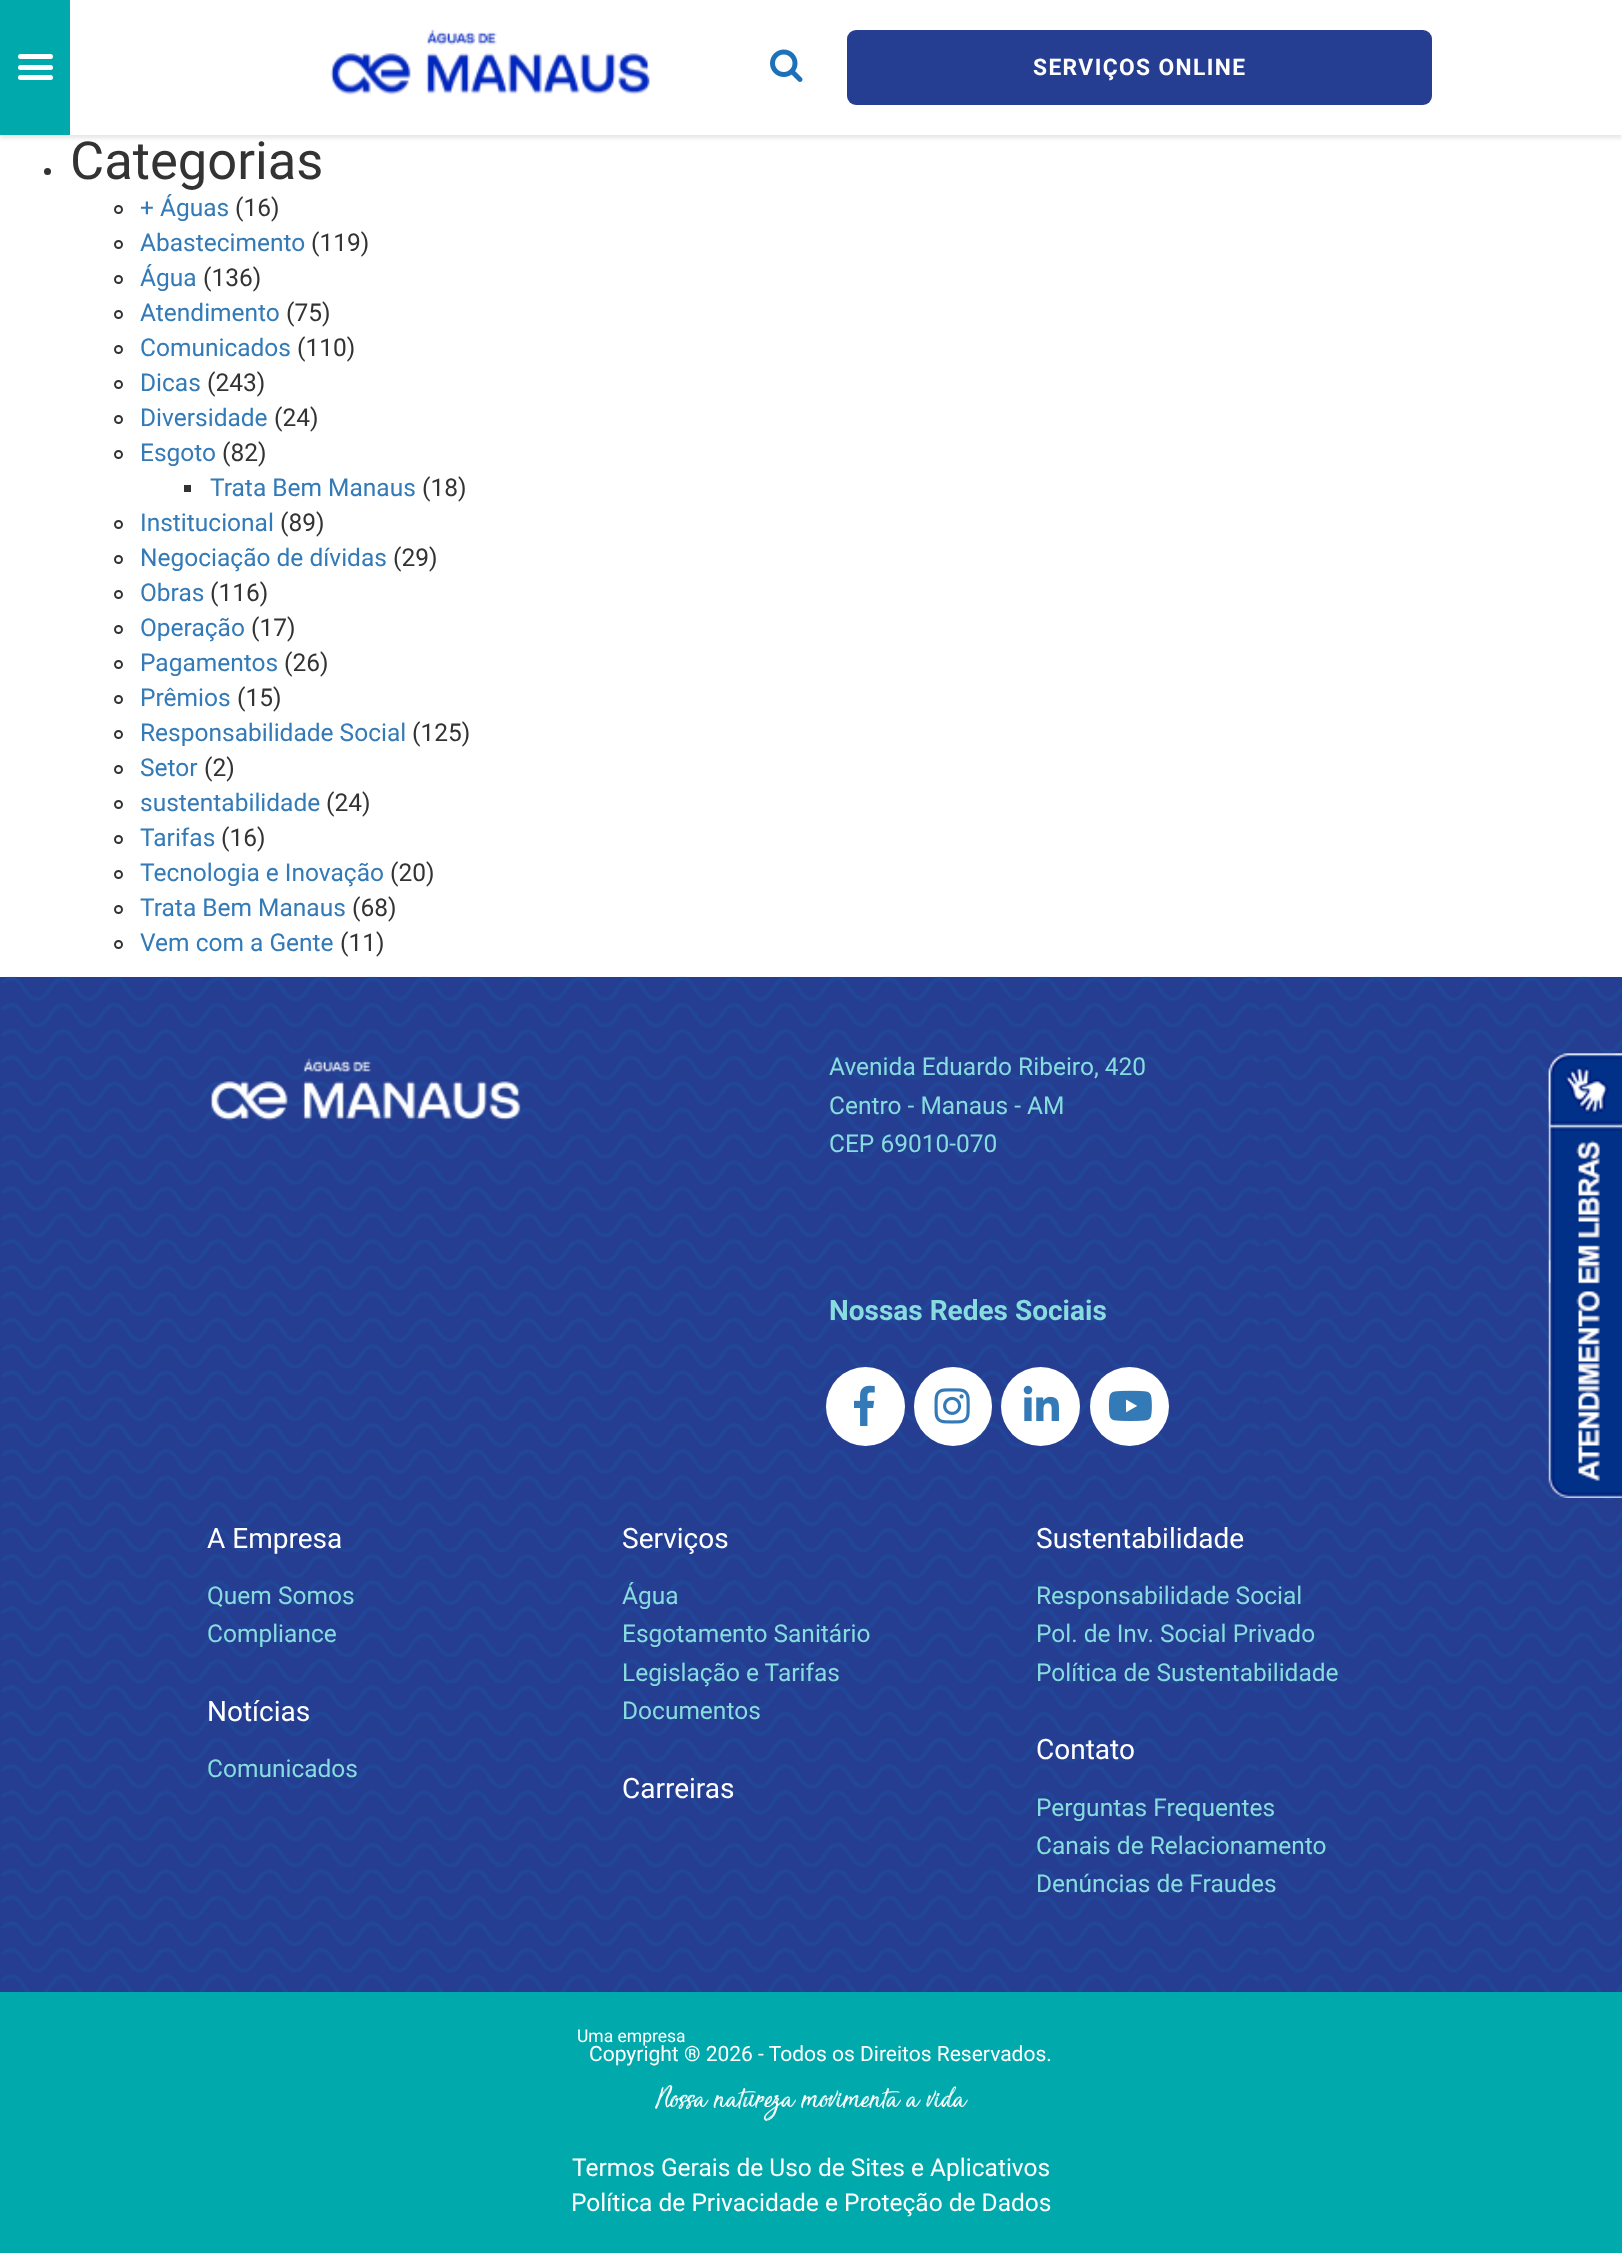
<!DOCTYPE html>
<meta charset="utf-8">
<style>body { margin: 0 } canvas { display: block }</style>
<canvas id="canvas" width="1622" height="2253"></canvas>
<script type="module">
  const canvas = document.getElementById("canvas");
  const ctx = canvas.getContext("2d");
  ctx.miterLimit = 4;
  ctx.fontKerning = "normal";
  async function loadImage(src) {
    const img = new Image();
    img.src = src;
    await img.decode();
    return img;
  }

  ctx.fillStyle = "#ffffff";
  ctx.fillRect(0, 0, 1622, 2253);
  ctx.fillStyle = "rgba(0, 0, 0, 0.1)";
  ctx.filter = "blur(2px)";
  ctx.beginPath();
  ctx.rect(0, 4, 1622, 134);
  ctx.fill();
  ctx.filter = "none";
  ctx.fillStyle = "#ffffff";
  ctx.fillRect(70, 1, 1552, 134);
  ctx.fillStyle = "#00a9ac";
  ctx.fillRect(0, 0, 70, 135);
  ctx.fillStyle = "#ffffff";
  ctx.beginPath();
  ctx.roundRect(18, 54, 35, 5, 2.5);
  ctx.fill();
  ctx.beginPath();
  ctx.roundRect(18, 65, 35, 5, 2.5);
  ctx.fill();
  ctx.beginPath();
  ctx.roundRect(18, 75, 35, 5, 2.5);
  ctx.fill();
  ctx.drawImage(await loadImage("img1.png"), 330, 29, 320, 66);
  ctx.drawImage(await loadImage("img2.png"), 770, 49, 33, 33);
  ctx.fillStyle = "#253e92";
  ctx.beginPath();
  ctx.roundRect(847, 30, 585, 75, 9);
  ctx.fill();
  ctx.letterSpacing = "1.4px";
  ctx.font = "bold 22.75px Roboto";
  ctx.fillStyle = "#ffffff";
  ctx.fillText("SERVIÇOS ONLINE", 1033, 75);
  ctx.fillStyle = "#333333";
  ctx.beginPath();
  ctx.arc(47.5, 171.5, 3.5, 0, Math.PI * 2);
  ctx.fill();
  ctx.letterSpacing = "0px";
  ctx.font = "52.5px Roboto";
  ctx.fillText("Categorias", 70, 179);
  ctx.beginPath();
  ctx.arc(118.5, 209.5, 3.5, 0, Math.PI * 2);
  ctx.strokeStyle = "#333333";
  ctx.lineWidth = 2;
  ctx.stroke();
  ctx.font = "24.5px Roboto";
  ctx.fillStyle = "#337ab7";
  ctx.fillText("+ Águas", 140, 216);
  ctx.fillStyle = "#333333";
  ctx.fillText("(16)", 235, 216);
  ctx.beginPath();
  ctx.arc(118.5, 244.5, 3.5, 0, Math.PI * 2);
  ctx.stroke();
  ctx.fillStyle = "#337ab7";
  ctx.fillText("Abastecimento", 140, 251);
  ctx.fillStyle = "#333333";
  ctx.fillText("(119)", 311, 251);
  ctx.beginPath();
  ctx.arc(118.5, 279.5, 3.5, 0, Math.PI * 2);
  ctx.stroke();
  ctx.fillStyle = "#337ab7";
  ctx.fillText("Água", 140, 286);
  ctx.fillStyle = "#333333";
  ctx.fillText("(136)", 203, 286);
  ctx.beginPath();
  ctx.arc(118.5, 314.5, 3.5, 0, Math.PI * 2);
  ctx.stroke();
  ctx.fillStyle = "#337ab7";
  ctx.fillText("Atendimento", 140, 321);
  ctx.fillStyle = "#333333";
  ctx.fillText("(75)", 286, 321);
  ctx.beginPath();
  ctx.arc(118.5, 349.5, 3.5, 0, Math.PI * 2);
  ctx.stroke();
  ctx.fillStyle = "#337ab7";
  ctx.fillText("Comunicados", 140, 356);
  ctx.fillStyle = "#333333";
  ctx.fillText("(110)", 297, 356);
  ctx.beginPath();
  ctx.arc(118.5, 384.5, 3.5, 0, Math.PI * 2);
  ctx.stroke();
  ctx.fillStyle = "#337ab7";
  ctx.fillText("Dicas", 140, 391);
  ctx.fillStyle = "#333333";
  ctx.fillText("(243)", 207, 391);
  ctx.beginPath();
  ctx.arc(118.5, 419.5, 3.5, 0, Math.PI * 2);
  ctx.stroke();
  ctx.fillStyle = "#337ab7";
  ctx.fillText("Diversidade", 140, 426);
  ctx.fillStyle = "#333333";
  ctx.fillText("(24)", 274, 426);
  ctx.beginPath();
  ctx.arc(118.5, 454.5, 3.5, 0, Math.PI * 2);
  ctx.stroke();
  ctx.fillStyle = "#337ab7";
  ctx.fillText("Esgoto", 140, 461);
  ctx.fillStyle = "#333333";
  ctx.fillText("(82)", 222, 461);
  ctx.fillRect(184, 485, 7, 7);
  ctx.fillStyle = "#337ab7";
  ctx.fillText("Trata Bem Manaus", 210, 496);
  ctx.fillStyle = "#333333";
  ctx.fillText("(18)", 422, 496);
  ctx.beginPath();
  ctx.arc(118.5, 524.5, 3.5, 0, Math.PI * 2);
  ctx.stroke();
  ctx.fillStyle = "#337ab7";
  ctx.fillText("Institucional", 140, 531);
  ctx.fillStyle = "#333333";
  ctx.fillText("(89)", 280, 531);
  ctx.beginPath();
  ctx.arc(118.5, 559.5, 3.5, 0, Math.PI * 2);
  ctx.stroke();
  ctx.fillStyle = "#337ab7";
  ctx.fillText("Negociação de dívidas", 140, 566);
  ctx.fillStyle = "#333333";
  ctx.fillText("(29)", 393, 566);
  ctx.beginPath();
  ctx.arc(118.5, 594.5, 3.5, 0, Math.PI * 2);
  ctx.stroke();
  ctx.fillStyle = "#337ab7";
  ctx.fillText("Obras", 140, 601);
  ctx.fillStyle = "#333333";
  ctx.fillText("(116)", 210, 601);
  ctx.beginPath();
  ctx.arc(118.5, 629.5, 3.5, 0, Math.PI * 2);
  ctx.stroke();
  ctx.fillStyle = "#337ab7";
  ctx.fillText("Operação", 140, 636);
  ctx.fillStyle = "#333333";
  ctx.fillText("(17)", 251, 636);
  ctx.beginPath();
  ctx.arc(118.5, 664.5, 3.5, 0, Math.PI * 2);
  ctx.stroke();
  ctx.fillStyle = "#337ab7";
  ctx.fillText("Pagamentos", 140, 671);
  ctx.fillStyle = "#333333";
  ctx.fillText("(26)", 284, 671);
  ctx.beginPath();
  ctx.arc(118.5, 699.5, 3.5, 0, Math.PI * 2);
  ctx.stroke();
  ctx.fillStyle = "#337ab7";
  ctx.fillText("Prêmios", 140, 706);
  ctx.fillStyle = "#333333";
  ctx.fillText("(15)", 237, 706);
  ctx.beginPath();
  ctx.arc(118.5, 734.5, 3.5, 0, Math.PI * 2);
  ctx.stroke();
  ctx.fillStyle = "#337ab7";
  ctx.fillText("Responsabilidade Social", 140, 741);
  ctx.fillStyle = "#333333";
  ctx.fillText("(125)", 412, 741);
  ctx.beginPath();
  ctx.arc(118.5, 769.5, 3.5, 0, Math.PI * 2);
  ctx.stroke();
  ctx.fillStyle = "#337ab7";
  ctx.fillText("Setor", 140, 776);
  ctx.fillStyle = "#333333";
  ctx.fillText("(2)", 204, 776);
  ctx.beginPath();
  ctx.arc(118.5, 804.5, 3.5, 0, Math.PI * 2);
  ctx.stroke();
  ctx.fillStyle = "#337ab7";
  ctx.fillText("sustentabilidade", 140, 811);
  ctx.fillStyle = "#333333";
  ctx.fillText("(24)", 326, 811);
  ctx.beginPath();
  ctx.arc(118.5, 839.5, 3.5, 0, Math.PI * 2);
  ctx.stroke();
  ctx.fillStyle = "#337ab7";
  ctx.fillText("Tarifas", 140, 846);
  ctx.fillStyle = "#333333";
  ctx.fillText("(16)", 221, 846);
  ctx.beginPath();
  ctx.arc(118.5, 874.5, 3.5, 0, Math.PI * 2);
  ctx.stroke();
  ctx.fillStyle = "#337ab7";
  ctx.fillText("Tecnologia e Inovação", 140, 881);
  ctx.fillStyle = "#333333";
  ctx.fillText("(20)", 390, 881);
  ctx.beginPath();
  ctx.arc(118.5, 909.5, 3.5, 0, Math.PI * 2);
  ctx.stroke();
  ctx.fillStyle = "#337ab7";
  ctx.fillText("Trata Bem Manaus", 140, 916);
  ctx.fillStyle = "#333333";
  ctx.fillText("(68)", 352, 916);
  ctx.beginPath();
  ctx.arc(118.5, 944.5, 3.5, 0, Math.PI * 2);
  ctx.stroke();
  ctx.fillStyle = "#337ab7";
  ctx.fillText("Vem com a Gente", 140, 951);
  ctx.fillStyle = "#333333";
  ctx.fillText("(11)", 340, 951);
  ctx.fillStyle = "#253e92";
  ctx.fillRect(0, 977, 1622, 1015);
  ctx.drawImage(await loadImage("img3.png"), 0, 976, 1622, 1016);
  ctx.drawImage(await loadImage("img4.png"), 210, 1058, 311, 63);
  ctx.fillStyle = "#86dcde";
  ctx.fillText("Avenida Eduardo Ribeiro, 420", 829, 1075);
  ctx.fillText("Centro - Manaus - AM", 829, 1114);
  ctx.fillText("CEP 69010-070", 829, 1152);
  ctx.font = "bold 28px Roboto";
  ctx.fillText("Nossas Redes Sociais", 829, 1320);
  ctx.fillStyle = "#ffffff";
  ctx.beginPath();
  ctx.arc(865.5, 1406.5, 39.5, 0, Math.PI * 2);
  ctx.fill();
  ctx.drawImage(await loadImage("img5.png"), 854, 1385, 21, 41);
  ctx.beginPath();
  ctx.roundRect(914, 1367, 78, 79, 39);
  ctx.fill();
  ctx.drawImage(await loadImage("img6.png"), 934, 1388, 36, 36);
  ctx.beginPath();
  ctx.arc(1040.5, 1406.5, 39.5, 0, Math.PI * 2);
  ctx.fill();
  ctx.drawImage(await loadImage("img7.png"), 1023, 1385, 36, 36);
  ctx.beginPath();
  ctx.arc(1129.5, 1406.5, 39.5, 0, Math.PI * 2);
  ctx.fill();
  ctx.drawImage(await loadImage("img8.png"), 1108, 1390, 44, 31);
  ctx.font = "28px Roboto";
  ctx.fillText("A Empresa", 207, 1548);
  ctx.font = "24.5px Roboto";
  ctx.fillStyle = "#86dcde";
  ctx.fillText("Quem Somos", 207, 1604);
  ctx.fillText("Compliance", 207, 1642);
  ctx.font = "28px Roboto";
  ctx.fillStyle = "#ffffff";
  ctx.fillText("Notícias", 207, 1721);
  ctx.font = "24.5px Roboto";
  ctx.fillStyle = "#86dcde";
  ctx.fillText("Comunicados", 207, 1777);
  ctx.font = "28px Roboto";
  ctx.fillStyle = "#ffffff";
  ctx.fillText("Serviços", 622, 1548);
  ctx.font = "24.5px Roboto";
  ctx.fillStyle = "#86dcde";
  ctx.fillText("Água", 622, 1604);
  ctx.fillText("Esgotamento Sanitário", 622, 1642);
  ctx.fillText("Legislação e Tarifas", 622, 1681);
  ctx.fillText("Documentos", 622, 1719);
  ctx.font = "28px Roboto";
  ctx.fillStyle = "#ffffff";
  ctx.fillText("Carreiras", 622, 1798);
  ctx.fillText("Sustentabilidade", 1036, 1548);
  ctx.font = "24.5px Roboto";
  ctx.fillStyle = "#86dcde";
  ctx.fillText("Responsabilidade Social", 1036, 1604);
  ctx.fillText("Pol. de Inv. Social Privado", 1036, 1642);
  ctx.fillText("Política de Sustentabilidade", 1036, 1681);
  ctx.font = "28px Roboto";
  ctx.fillStyle = "#ffffff";
  ctx.fillText("Contato", 1036, 1759);
  ctx.font = "24.5px Roboto";
  ctx.fillStyle = "#86dcde";
  ctx.fillText("Perguntas Frequentes", 1036, 1816);
  ctx.fillText("Canais de Relacionamento", 1036, 1854);
  ctx.fillText("Denúncias de Fraudes", 1036, 1892);
  ctx.fillStyle = "#00a9ac";
  ctx.fillRect(0, 1992, 1622, 261);
  ctx.font = "17.5px Roboto";
  ctx.fillStyle = "#ffffff";
  ctx.fillText("Uma empresa", 577, 2042);
  ctx.font = "21px Roboto";
  ctx.fillText("Copyright ® 2026 - Todos os Direitos Reservados.", 589, 2061);
  ctx.font = "38.5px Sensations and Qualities";
  ctx.fillText("Nossa natureza movimenta a vida", 655, 2107);
  ctx.font = "24.5px Roboto";
  ctx.fillText("Termos Gerais de Uso de Sites e Aplicativos", 572, 2176);
  ctx.fillText("Política de Privacidade e Proteção de Dados", 571, 2211);
  ctx.drawImage(await loadImage("img9.png"), 1548, 1053, 74, 64);
  ctx.drawImage(await loadImage("img10.png"), 1548, 1053, 74, 445);
</script>
